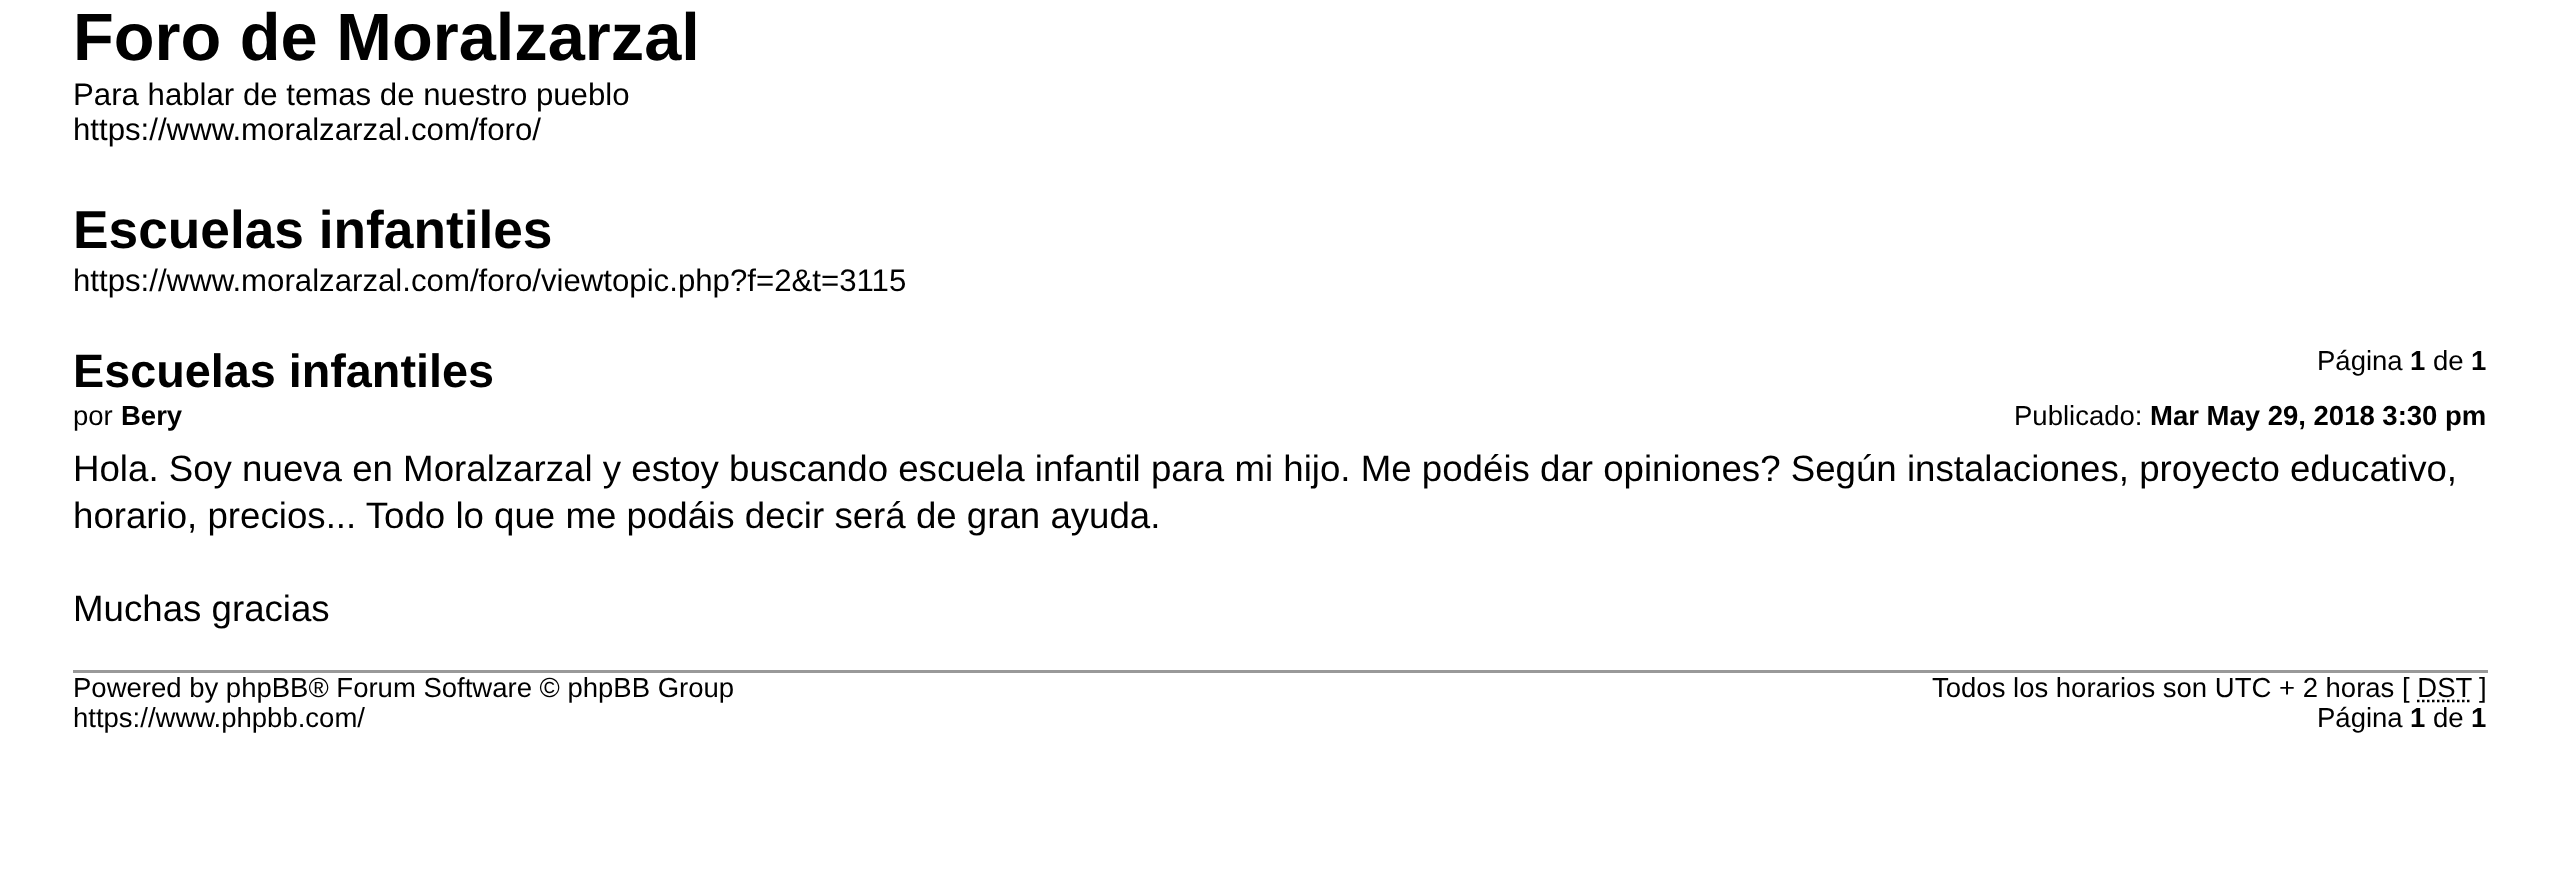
<!DOCTYPE html>
<meta charset="utf-8">
<style>body { margin: 0 } canvas { display: block }</style>
<canvas id="canvas" width="2560" height="893"></canvas>
<script type="module">
  const canvas = document.getElementById("canvas");
  const ctx = canvas.getContext("2d");
  ctx.miterLimit = 4;
  ctx.fontKerning = "normal";

  ctx.fillStyle = "#ffffff";
  ctx.fillRect(0, 0, 2560, 893);
  ctx.font = "bold 66.75px Liberation Sans";
  ctx.fillStyle = "#000000";
  ctx.fillText("Foro de Moralzarzal", 73, 60);
  ctx.font = "31.2px Liberation Sans";
  ctx.fillText("Para hablar de temas de nuestro pueblo", 73, 105);
  ctx.fillText("https://www.moralzarzal.com/foro/", 73, 140);
  ctx.font = "bold 53.25px Liberation Sans";
  ctx.fillText("Escuelas infantiles", 73, 248);
  ctx.font = "31.2px Liberation Sans";
  ctx.fillText("https://www.moralzarzal.com/foro/viewtopic.php?f=2&t=3115", 73, 291);
  ctx.font = "27.5px Liberation Sans";
  ctx.fillText("Página", 2317, 370);
  ctx.font = "bold 27.5px Liberation Sans";
  ctx.fillText("1", 2410, 370);
  ctx.font = "27.5px Liberation Sans";
  ctx.fillText("de", 2433, 370);
  ctx.font = "bold 27.5px Liberation Sans";
  ctx.fillText("1", 2471, 370);
  ctx.font = "bold 46.75px Liberation Sans";
  ctx.fillText("Escuelas infantiles", 73, 387);
  ctx.font = "27.5px Liberation Sans";
  ctx.fillText("por", 73, 425);
  ctx.font = "bold 27.5px Liberation Sans";
  ctx.fillText("Bery", 121, 425);
  ctx.font = "27.5px Liberation Sans";
  ctx.fillText("Publicado:", 2014, 425);
  ctx.font = "bold 27.5px Liberation Sans";
  ctx.fillText("Mar May 29, 2018 3:30 pm", 2150, 425);
  ctx.font = "36.67px Liberation Sans";
  ctx.fillText("Hola. Soy nueva en Moralzarzal y estoy buscando escuela infantil para mi hijo. Me podéis dar opiniones? Según instalaciones, proyecto educativo,", 73, 481);
  ctx.fillText("horario, precios... Todo lo que me podáis decir será de gran ayuda.", 73, 528);
  ctx.fillText("Muchas gracias", 73, 621);
  ctx.fillStyle = "#999999";
  ctx.fillRect(73, 670, 2415, 3);
  ctx.font = "27.5px Liberation Sans";
  ctx.fillStyle = "#000000";
  ctx.fillText("Powered by phpBB® Forum Software © phpBB Group", 73, 697);
  ctx.fillText("https://www.phpbb.com/", 73, 727);
  ctx.fillText("Todos los horarios son UTC + 2 horas [ DST", 1932, 697);
  ctx.fillText("]", 2479, 697);
  ctx.beginPath();
  ctx.moveTo(2417, 701);
  ctx.lineTo(2471.5, 701);
  ctx.strokeStyle = "#000000";
  ctx.lineWidth = 2.5;
  ctx.setLineDash([2.5, 2.5]);
  ctx.stroke();
  ctx.fillText("Página", 2317, 727);
  ctx.font = "bold 27.5px Liberation Sans";
  ctx.fillText("1", 2410, 727);
  ctx.font = "27.5px Liberation Sans";
  ctx.fillText("de", 2433, 727);
  ctx.font = "bold 27.5px Liberation Sans";
  ctx.fillText("1", 2471, 727);
</script>
